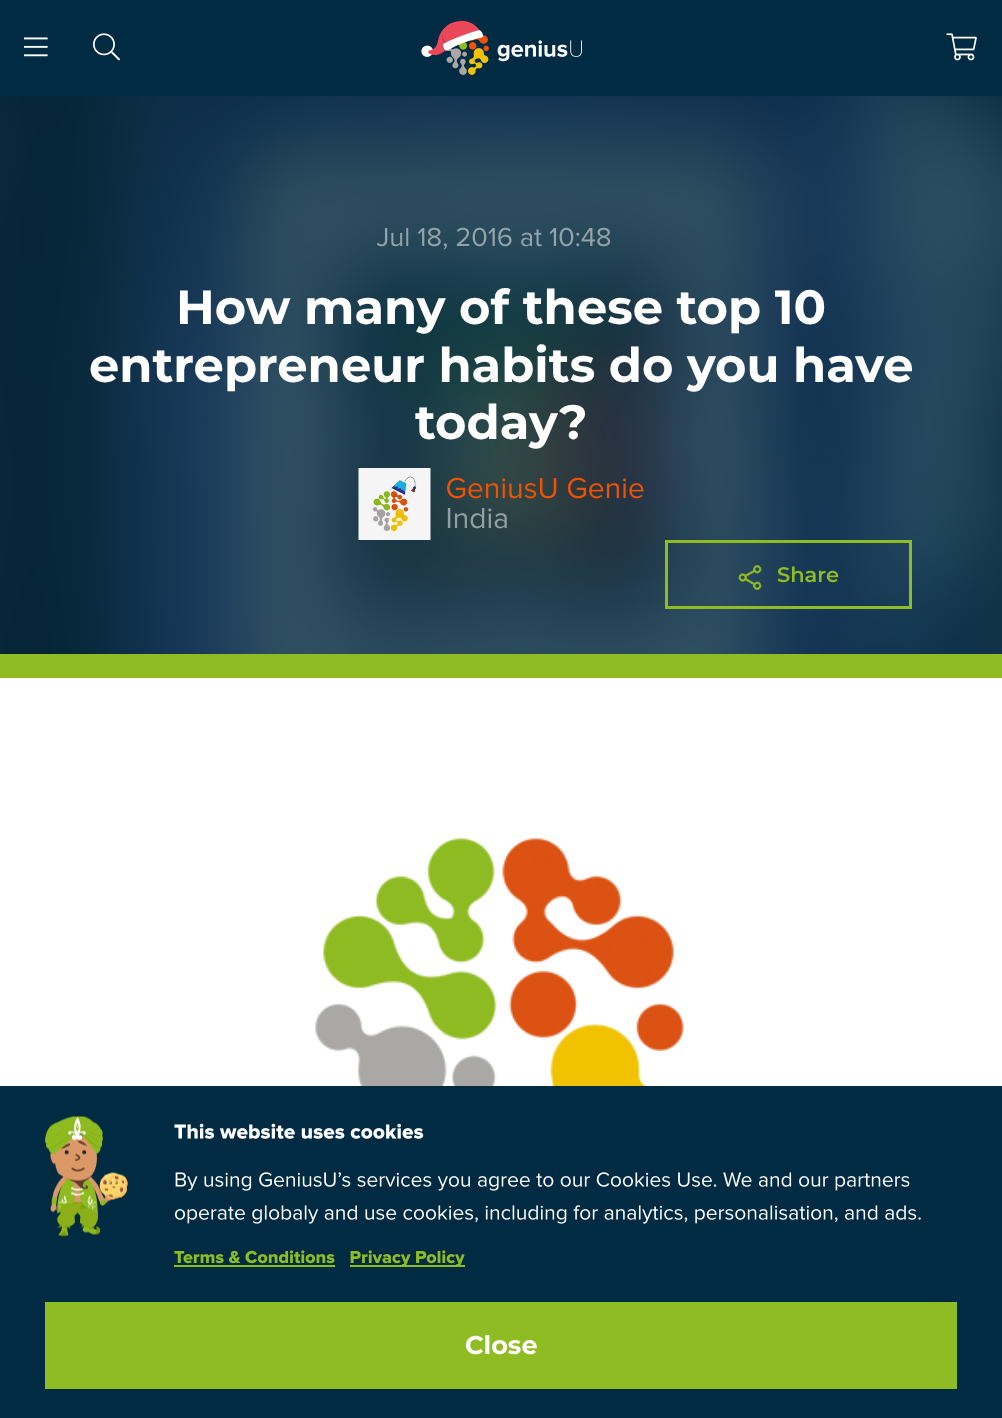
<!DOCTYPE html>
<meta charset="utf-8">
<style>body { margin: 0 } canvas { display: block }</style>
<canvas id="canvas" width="1002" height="1418"></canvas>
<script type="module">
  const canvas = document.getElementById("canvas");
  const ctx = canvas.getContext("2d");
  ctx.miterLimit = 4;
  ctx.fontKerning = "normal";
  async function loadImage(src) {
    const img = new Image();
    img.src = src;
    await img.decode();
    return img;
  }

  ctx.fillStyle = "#ffffff";
  ctx.fillRect(0, 0, 1002, 1418);
  ctx.fillStyle = "#002b43";
  ctx.fillRect(0, 0, 1002, 96);
  ctx.drawImage(await loadImage("img1.png"), 24, 37, 24, 20);
  ctx.drawImage(await loadImage("img2.png"), 93, 33, 27, 28);
  ctx.drawImage(await loadImage("img3.png"), 421, 20, 161, 55);
  ctx.drawImage(await loadImage("img4.png"), 946, 33, 31, 28);
  ctx.drawImage(await loadImage("img5.png"), 0, 96, 1002, 558);
  ctx.drawImage(await loadImage("img6.png"), 376, 227, 235, 23);
  ctx.font = "bold 48px Montserrat";
  ctx.fillStyle = "#ffffff";
  ctx.fillText("How many of these top 10", 176, 324);
  ctx.fillText("entrepreneur habits do you have", 89, 382);
  ctx.fillText("today?", 415, 439);
  ctx.drawImage(await loadImage("img7.png"), 358, 468, 73, 72);
  ctx.drawImage(await loadImage("img8.png"), 447, 477, 197, 22);
  ctx.drawImage(await loadImage("img9.png"), 447, 508, 60, 21);
  ctx.beginPath();
  ctx.rect(666.5, 541.5, 244, 66);
  ctx.strokeStyle = "#8fbb23";
  ctx.lineWidth = 3;
  ctx.stroke();
  ctx.drawImage(await loadImage("img10.png"), 738, 565, 24, 25);
  ctx.font = "600 21px Montserrat";
  ctx.fillStyle = "#8fbb23";
  ctx.fillText("Share", 777, 582);
  ctx.fillRect(0, 654, 1002, 24);
  ctx.drawImage(await loadImage("img11.png"), 315, 838, 369, 248);
  ctx.fillStyle = "#002b43";
  ctx.fillRect(0, 1086, 1002, 332);
  ctx.drawImage(await loadImage("img12.png"), 45, 1116, 83, 121);
  ctx.drawImage(await loadImage("img13.png"), 174, 1123, 250, 16);
  ctx.drawImage(await loadImage("img14.png"), 175, 1172, 735, 19);
  ctx.drawImage(await loadImage("img15.png"), 175, 1205, 746, 19);
  ctx.drawImage(await loadImage("img16.png"), 174, 1250, 161, 14);
  ctx.fillStyle = "#8fbb23";
  ctx.fillRect(174, 1265, 161, 2);
  ctx.drawImage(await loadImage("img17.png"), 350, 1250, 115, 15);
  ctx.fillRect(350, 1265, 115, 2);
  ctx.fillRect(45, 1302, 912, 87);
  ctx.font = "bold 25.5px Montserrat";
  ctx.fillStyle = "#ffffff";
  ctx.fillText("Close", 465, 1354);
</script>
